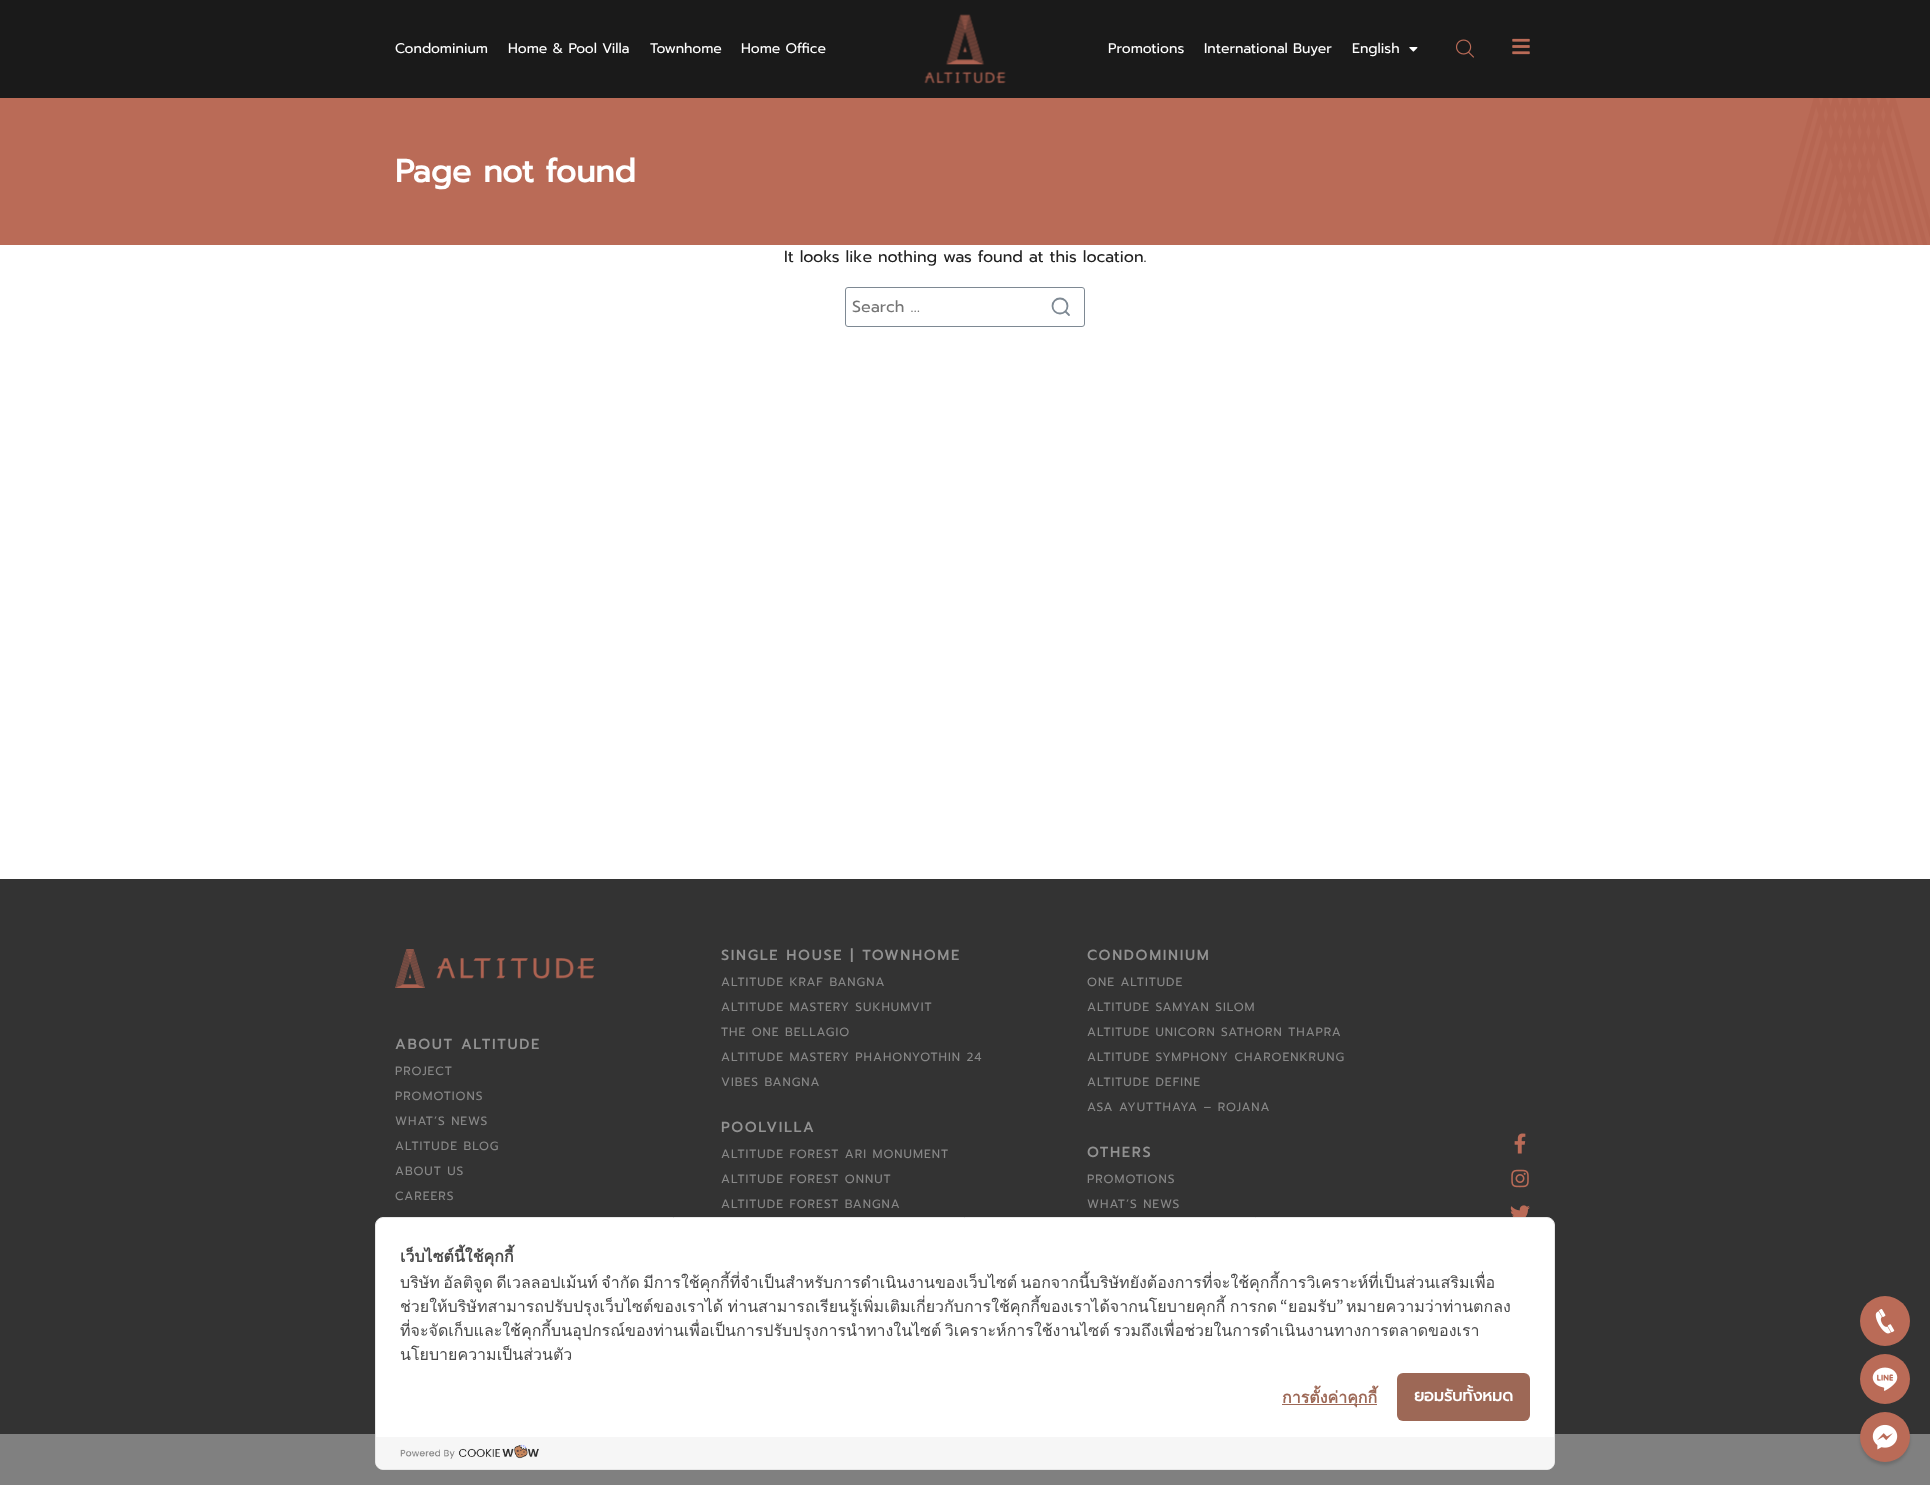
<!DOCTYPE html>
<meta charset="utf-8">
<style>body { margin: 0 } canvas { display: block }</style>
<canvas id="canvas" width="1930" height="1486"></canvas>
<script type="module">
  const canvas = document.getElementById("canvas");
  const ctx = canvas.getContext("2d");
  ctx.miterLimit = 4;
  ctx.fontKerning = "normal";
  async function loadImage(src) {
    const img = new Image();
    img.src = src;
    await img.decode();
    return img;
  }

  ctx.fillStyle = "#ffffff";
  ctx.fillRect(0, 0, 1930, 1486);
  ctx.fillStyle = "#1a1a1a";
  ctx.fillRect(0, 0, 1930, 98);
  ctx.font = "14px Prompt";
  ctx.fillStyle = "#ffffff";
  ctx.fillText("Condominium", 395, 53);
  ctx.fillText("Home & Pool Villa", 508, 53);
  ctx.fillText("Townhome", 650, 53);
  ctx.fillText("Home Office", 741, 53);
  ctx.drawImage(await loadImage("img1.png"), 924, 14, 82, 70);
  ctx.fillText("Promotions", 1108, 53);
  ctx.fillText("International Buyer", 1204, 53);
  ctx.fillText("English", 1352, 53);
  ctx.drawImage(await loadImage("img2.png"), 1409, 47, 9, 5);
  ctx.drawImage(await loadImage("img3.png"), 1456, 39, 18, 19);
  ctx.drawImage(await loadImage("img4.png"), 1512, 38, 18, 17);
  ctx.fillStyle = "#ba6b57";
  ctx.fillRect(0, 98, 1930, 147);
  ctx.font = "bold 32px Prompt";
  ctx.fillStyle = "#ffffff";
  ctx.fillText("Page not found", 395, 182);
  ctx.drawImage(await loadImage("img5.png"), 1772, 98, 158, 147);
  ctx.font = "16px Prompt";
  ctx.fillStyle = "#222222";
  ctx.fillText("It looks like nothing was found at this location.", 784, 262);
  ctx.beginPath();
  ctx.roundRect(845.5, 287.5, 239, 39, 2.5);
  ctx.strokeStyle = "#7e8993";
  ctx.stroke();
  ctx.fillStyle = "#757575";
  ctx.fillText("Search …", 852, 312);
  ctx.beginPath();
  ctx.arc(1060, 306, 7.5, 0, Math.PI * 2);
  ctx.lineWidth = 1.8;
  ctx.stroke();
  ctx.beginPath();
  ctx.moveTo(1069, 315);
  ctx.lineTo(1065.5, 311.5);
  ctx.lineCap = "round";
  ctx.lineJoin = "round";
  ctx.stroke();
  ctx.fillStyle = "#333333";
  ctx.fillRect(0, 879, 1930, 555);
  ctx.drawImage(await loadImage("img6.png"), 395, 949, 199, 39);
  ctx.letterSpacing = "2px";
  ctx.font = "bold 14px Prompt";
  ctx.fillStyle = "#929292";
  ctx.fillText("ABOUT ALTITUDE", 395, 1049);
  ctx.letterSpacing = "1px";
  ctx.font = "12px Prompt";
  ctx.fillStyle = "#888888";
  ctx.fillText("PROJECT", 395, 1075);
  ctx.fillText("PROMOTIONS", 395, 1100);
  ctx.fillText("WHAT’S NEWS", 395, 1125);
  ctx.fillText("ALTITUDE BLOG", 395, 1150);
  ctx.fillText("ABOUT US", 395, 1175);
  ctx.fillText("CAREERS", 395, 1200);
  ctx.letterSpacing = "2px";
  ctx.font = "bold 14px Prompt";
  ctx.fillStyle = "#929292";
  ctx.fillText("SINGLE HOUSE | TOWNHOME", 721, 960);
  ctx.letterSpacing = "1px";
  ctx.font = "12px Prompt";
  ctx.fillStyle = "#888888";
  ctx.fillText("ALTITUDE KRAF BANGNA", 721, 986);
  ctx.fillText("ALTITUDE MASTERY SUKHUMVIT", 721, 1011);
  ctx.fillText("THE ONE BELLAGIO", 721, 1036);
  ctx.fillText("ALTITUDE MASTERY PHAHONYOTHIN 24", 721, 1061);
  ctx.fillText("VIBES BANGNA", 721, 1086);
  ctx.letterSpacing = "2px";
  ctx.font = "bold 14px Prompt";
  ctx.fillStyle = "#929292";
  ctx.fillText("POOLVILLA", 721, 1132);
  ctx.letterSpacing = "1px";
  ctx.font = "12px Prompt";
  ctx.fillStyle = "#888888";
  ctx.fillText("ALTITUDE FOREST ARI MONUMENT", 721, 1158);
  ctx.fillText("ALTITUDE FOREST ONNUT", 721, 1183);
  ctx.fillText("ALTITUDE FOREST BANGNA", 721, 1208);
  ctx.letterSpacing = "2px";
  ctx.font = "bold 14px Prompt";
  ctx.fillStyle = "#929292";
  ctx.fillText("CONDOMINIUM", 1087, 960);
  ctx.letterSpacing = "1px";
  ctx.font = "12px Prompt";
  ctx.fillStyle = "#888888";
  ctx.fillText("ONE ALTITUDE", 1087, 986);
  ctx.fillText("ALTITUDE SAMYAN SILOM", 1087, 1011);
  ctx.fillText("ALTITUDE UNICORN SATHORN THAPRA", 1087, 1036);
  ctx.fillText("ALTITUDE SYMPHONY CHAROENKRUNG", 1087, 1061);
  ctx.fillText("ALTITUDE DEFINE", 1087, 1086);
  ctx.fillText("ASA AYUTTHAYA – ROJANA", 1087, 1111);
  ctx.letterSpacing = "2px";
  ctx.font = "bold 14px Prompt";
  ctx.fillStyle = "#929292";
  ctx.fillText("OTHERS", 1087, 1157);
  ctx.letterSpacing = "1px";
  ctx.font = "12px Prompt";
  ctx.fillStyle = "#888888";
  ctx.fillText("PROMOTIONS", 1087, 1183);
  ctx.fillText("WHAT’S NEWS", 1087, 1208);
  ctx.drawImage(await loadImage("img7.png"), 1514, 1133, 12, 21);
  ctx.drawImage(await loadImage("img8.png"), 1511, 1169, 18, 19);
  ctx.drawImage(await loadImage("img9.png"), 1510, 1205, 20, 12);
  ctx.fillStyle = "#808080";
  ctx.fillRect(0, 1434, 1930, 51);
  ctx.fillStyle = "#ffffff";
  ctx.beginPath();
  ctx.roundRect(375.5, 1217.5, 1179, 252, 7.5);
  ctx.fill();
  ctx.strokeStyle = "#e8e8e8";
  ctx.lineWidth = 1;
  ctx.lineJoin = "miter";
  ctx.stroke();
  ctx.letterSpacing = "0px";
  ctx.font = "bold 16px Loma";
  ctx.fillStyle = "#4a4a4a";
  ctx.fillText("เว็บไซต์นี้ใช้คุกกี้", 400, 1262);
  ctx.wordSpacing = "-2px";
  ctx.font = "16px Loma";
  ctx.fillText("บริษัท อัลติจูด ดีเวลลอปเม้นท์ จำกัด มีการใช้คุกกี้ที่จำเป็นสำหรับการดำเนินงานของเว็บไซต์ นอกจากนี้บริษัทยังต้องการที่จะใช้คุกกี้การวิเคราะห์ที่เป็นส่วนเสริมเพื่อ", 400, 1288);
  ctx.wordSpacing = "-1px";
  ctx.fillText("ช่วยให้บริษัทสามารถปรับปรุงเว็บไซต์ของเราได้ ท่านสามารถเรียนรู้เพิ่มเติมเกี่ยวกับการใช้คุกกี้ของเราได้จากนโยบายคุกกี้ การกด", 400, 1312);
  ctx.wordSpacing = "0px";
  ctx.font = "16px Noto Sans JP";
  ctx.fillText("“", 1280, 1312);
  ctx.font = "16px Loma";
  ctx.fillText("ยอมรับ", 1288, 1312);
  ctx.font = "16px Noto Sans JP";
  ctx.fillText("”", 1336, 1312);
  ctx.font = "16px Loma";
  ctx.fillText("หมายความว่าท่านตกลง", 1346, 1312);
  ctx.wordSpacing = "-2px";
  ctx.fillText("ที่จะจัดเก็บและใช้คุกกี้บนอุปกรณ์ของท่านเพื่อเป็นการปรับปรุงการนำทางในไซต์ วิเคราะห์การใช้งานไซต์ รวมถึงเพื่อช่วยในการดำเนินงานทางการตลาดของเรา", 400, 1336);
  ctx.wordSpacing = "0px";
  ctx.fillText("นโยบายความเป็นส่วนตัว", 400, 1360);
  ctx.fillStyle = "#9d6856";
  ctx.fillRect(1282, 1404, 95, 1);
  ctx.font = "bold 16px Loma";
  ctx.fillText("การตั้งค่าคุกกี้", 1282, 1403);
  ctx.beginPath();
  ctx.roundRect(1397, 1373, 133, 48, 6);
  ctx.fill();
  ctx.font = "bold 16px Prompt";
  ctx.fillStyle = "#ffffff";
  ctx.fillText("ยอมรับทั้งหมด", 1414, 1401);
  ctx.fillStyle = "#f6f6f6";
  ctx.beginPath();
  ctx.roundRect(376, 1437, 1178, 32, [0, 0, 8, 8]);
  ctx.fill();
  ctx.drawImage(await loadImage("img10.png"), 400, 1444, 139, 15);
  ctx.fillStyle = "#ba6b57";
  ctx.beginPath();
  ctx.arc(1885, 1321, 25, 0, Math.PI * 2);
  ctx.fill();
  ctx.drawImage(await loadImage("img11.png"), 1875, 1309, 20, 25);
  ctx.beginPath();
  ctx.arc(1885, 1379, 25, 0, Math.PI * 2);
  ctx.fill();
  ctx.drawImage(await loadImage("img12.png"), 1872, 1367, 26, 24);
  ctx.fillStyle = "rgba(0, 0, 0, 0.15)";
  ctx.filter = "blur(1.5px)";
  ctx.beginPath();
  ctx.roundRect(1860, 1415, 50, 50, 25);
  ctx.fill();
  ctx.filter = "none";
  ctx.fillStyle = "#ba6b57";
  ctx.beginPath();
  ctx.arc(1885, 1437, 25, 0, Math.PI * 2);
  ctx.fill();
  ctx.drawImage(await loadImage("img13.png"), 1872, 1424, 26, 26);
</script>
